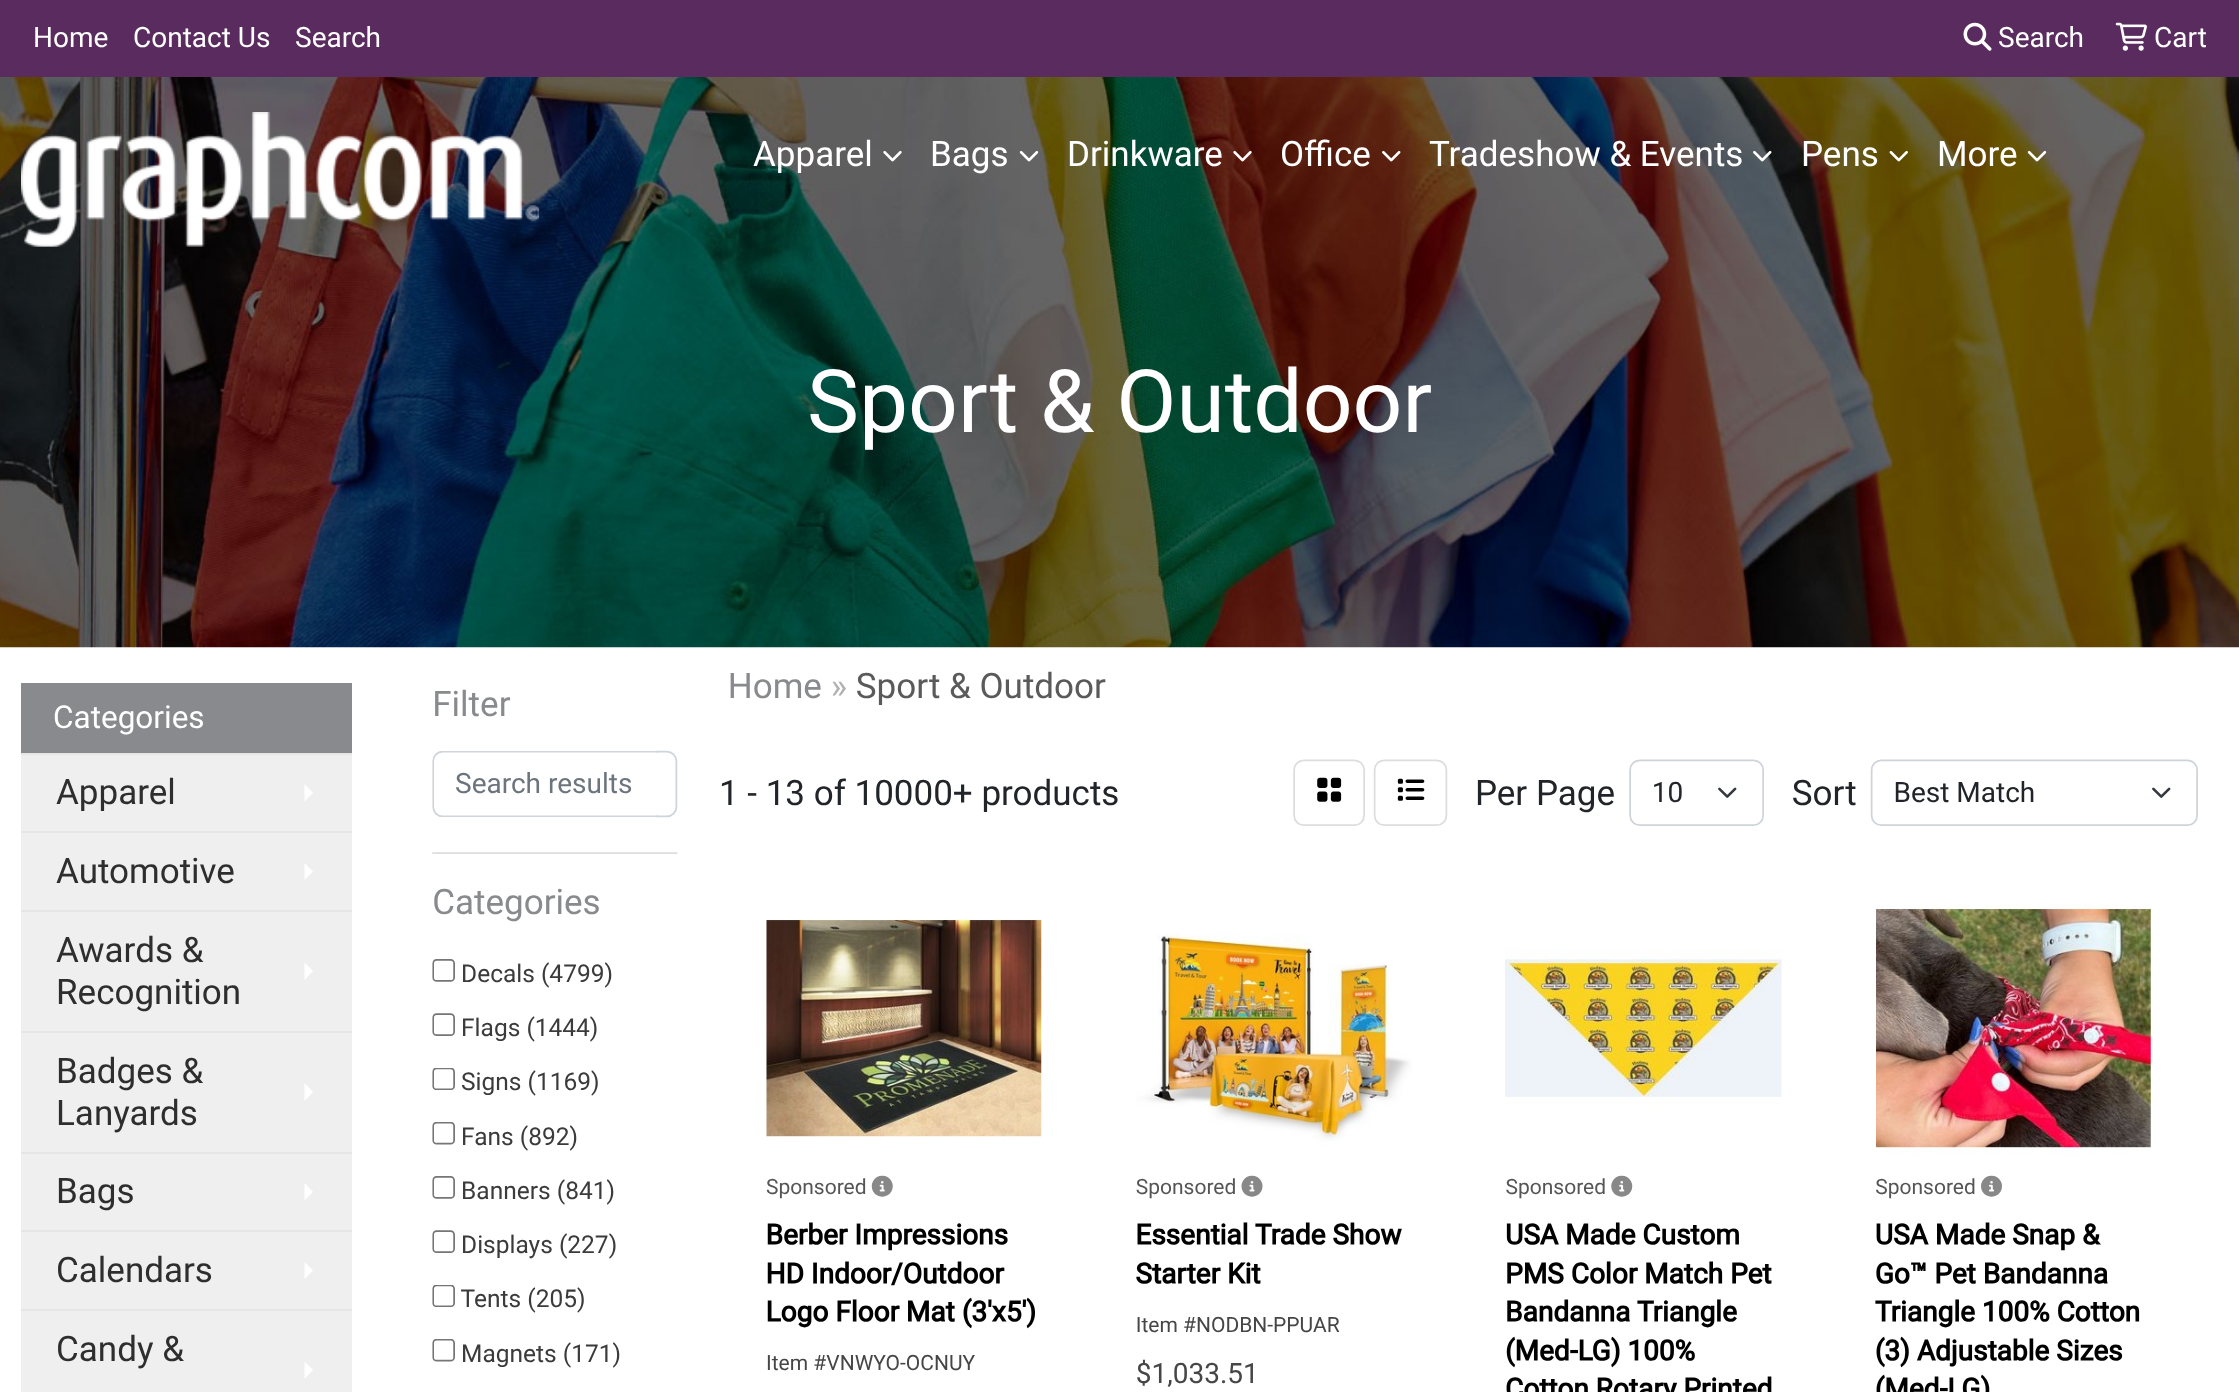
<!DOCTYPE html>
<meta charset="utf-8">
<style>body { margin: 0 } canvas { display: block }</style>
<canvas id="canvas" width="2239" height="1392"></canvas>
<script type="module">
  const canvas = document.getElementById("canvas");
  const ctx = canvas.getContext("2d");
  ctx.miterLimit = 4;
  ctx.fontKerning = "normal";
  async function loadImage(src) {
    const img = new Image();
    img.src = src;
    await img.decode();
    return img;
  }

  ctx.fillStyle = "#ffffff";
  ctx.fillRect(0, 0, 2239, 1392);
  ctx.fillStyle = "#592b5e";
  ctx.fillRect(0, 0, 2239, 77);
  ctx.font = "28px Roboto";
  ctx.fillStyle = "#ffffff";
  ctx.fillText("Home", 33, 47);
  ctx.fillText("Contact Us", 133, 47);
  ctx.fillText("Search", 295, 47);
  ctx.drawImage(await loadImage("img1.png"), 1963, 22, 29, 29);
  ctx.fillText("Search", 1998, 47);
  ctx.drawImage(await loadImage("img2.png"), 2115, 22, 32, 29);
  ctx.fillText("Cart", 2154, 47);
  ctx.drawImage(await loadImage("img11.png"), 0, 77, 2239, 571);
  ctx.drawImage(await loadImage("img3.png"), 21, 112, 518, 135);
  ctx.font = "35px Roboto";
  ctx.fillText("Apparel", 753, 166);
  ctx.drawImage(await loadImage("img4.png"), 883, 151, 19, 11);
  ctx.fillText("Bags", 930, 166);
  ctx.drawImage(await loadImage("img5.png"), 1019, 151, 20, 11);
  ctx.fillText("Drinkware", 1067, 166);
  ctx.drawImage(await loadImage("img6.png"), 1233, 150, 19, 12);
  ctx.fillText("Office", 1280, 166);
  ctx.drawImage(await loadImage("img7.png"), 1382, 150, 19, 12);
  ctx.fillText("Tradeshow & Events", 1429, 166);
  ctx.drawImage(await loadImage("img8.png"), 1753, 150, 19, 12);
  ctx.fillText("Pens", 1801, 166);
  ctx.drawImage(await loadImage("img9.png"), 1889, 150, 19, 12);
  ctx.fillText("More", 1937, 166);
  ctx.drawImage(await loadImage("img10.png"), 2027, 151, 20, 11);
  ctx.font = "87.5px Roboto";
  ctx.fillText("Sport & Outdoor", 807, 432);
  ctx.fillStyle = "#898a8d";
  ctx.fillRect(21, 683, 331, 70);
  ctx.font = "31.5px Roboto";
  ctx.fillStyle = "#ffffff";
  ctx.fillText("Categories", 53, 728);
  ctx.fillStyle = "#efefef";
  ctx.fillRect(21, 755, 331, 76);
  ctx.fillStyle = "#e5e5e5";
  ctx.fillRect(21, 753, 331, 2);
  ctx.font = "35px Roboto";
  ctx.fillStyle = "#2e2e2e";
  ctx.fillText("Apparel", 56, 804);
  ctx.fillStyle = "#ffffff";
  ctx.beginPath();
  ctx.moveTo(304.5, 801.5);
  ctx.lineTo(304.5, 784);
  ctx.lineTo(313, 793);
  ctx.closePath();
  ctx.fill();
  ctx.fillStyle = "#efefef";
  ctx.fillRect(21, 833, 331, 77);
  ctx.fillStyle = "#e5e5e5";
  ctx.fillRect(21, 831, 331, 2);
  ctx.fillStyle = "#2e2e2e";
  ctx.fillText("Automotive", 56, 883);
  ctx.fillStyle = "#ffffff";
  ctx.beginPath();
  ctx.moveTo(304.5, 880);
  ctx.lineTo(304.5, 863);
  ctx.lineTo(313, 871.5);
  ctx.closePath();
  ctx.fill();
  ctx.fillStyle = "#efefef";
  ctx.fillRect(21, 912, 331, 119);
  ctx.fillStyle = "#e5e5e5";
  ctx.fillRect(21, 910, 331, 2);
  ctx.fillStyle = "#2e2e2e";
  ctx.fillText("Awards &", 56, 962);
  ctx.fillStyle = "#ffffff";
  ctx.beginPath();
  ctx.moveTo(304.5, 980);
  ctx.lineTo(304.5, 962.5);
  ctx.lineTo(313, 971);
  ctx.closePath();
  ctx.fill();
  ctx.fillStyle = "#2e2e2e";
  ctx.fillText("Recognition", 56, 1004);
  ctx.fillStyle = "#efefef";
  ctx.fillRect(21, 1033, 331, 119);
  ctx.fillStyle = "#e5e5e5";
  ctx.fillRect(21, 1031, 331, 2);
  ctx.fillStyle = "#2e2e2e";
  ctx.fillText("Badges &", 56, 1083);
  ctx.fillStyle = "#ffffff";
  ctx.beginPath();
  ctx.moveTo(304.5, 1101);
  ctx.lineTo(304.5, 1083);
  ctx.lineTo(313, 1092);
  ctx.closePath();
  ctx.fill();
  ctx.fillStyle = "#2e2e2e";
  ctx.fillText("Lanyards", 56, 1125);
  ctx.fillStyle = "#efefef";
  ctx.fillRect(21, 1154, 331, 76);
  ctx.fillStyle = "#e5e5e5";
  ctx.fillRect(21, 1152, 331, 2);
  ctx.fillStyle = "#2e2e2e";
  ctx.fillText("Bags", 56, 1203);
  ctx.fillStyle = "#ffffff";
  ctx.beginPath();
  ctx.moveTo(304.5, 1200.5);
  ctx.lineTo(304.5, 1183);
  ctx.lineTo(313, 1192);
  ctx.closePath();
  ctx.fill();
  ctx.fillStyle = "#efefef";
  ctx.fillRect(21, 1232, 331, 77);
  ctx.fillStyle = "#e5e5e5";
  ctx.fillRect(21, 1230, 331, 2);
  ctx.fillStyle = "#2e2e2e";
  ctx.fillText("Calendars", 56, 1282);
  ctx.fillStyle = "#ffffff";
  ctx.beginPath();
  ctx.moveTo(304.5, 1279);
  ctx.lineTo(304.5, 1262);
  ctx.lineTo(313, 1270.5);
  ctx.closePath();
  ctx.fill();
  ctx.fillStyle = "#efefef";
  ctx.fillRect(21, 1311, 331, 81);
  ctx.fillStyle = "#e5e5e5";
  ctx.fillRect(21, 1309, 331, 2);
  ctx.fillStyle = "#2e2e2e";
  ctx.fillText("Candy &", 56, 1361);
  ctx.fillStyle = "#ffffff";
  ctx.beginPath();
  ctx.moveTo(304.5, 1379);
  ctx.lineTo(304.5, 1361.5);
  ctx.lineTo(313, 1370);
  ctx.closePath();
  ctx.fill();
  ctx.drawImage(await loadImage("img12.png"), 432, 671, 1766, 721);
</script>
